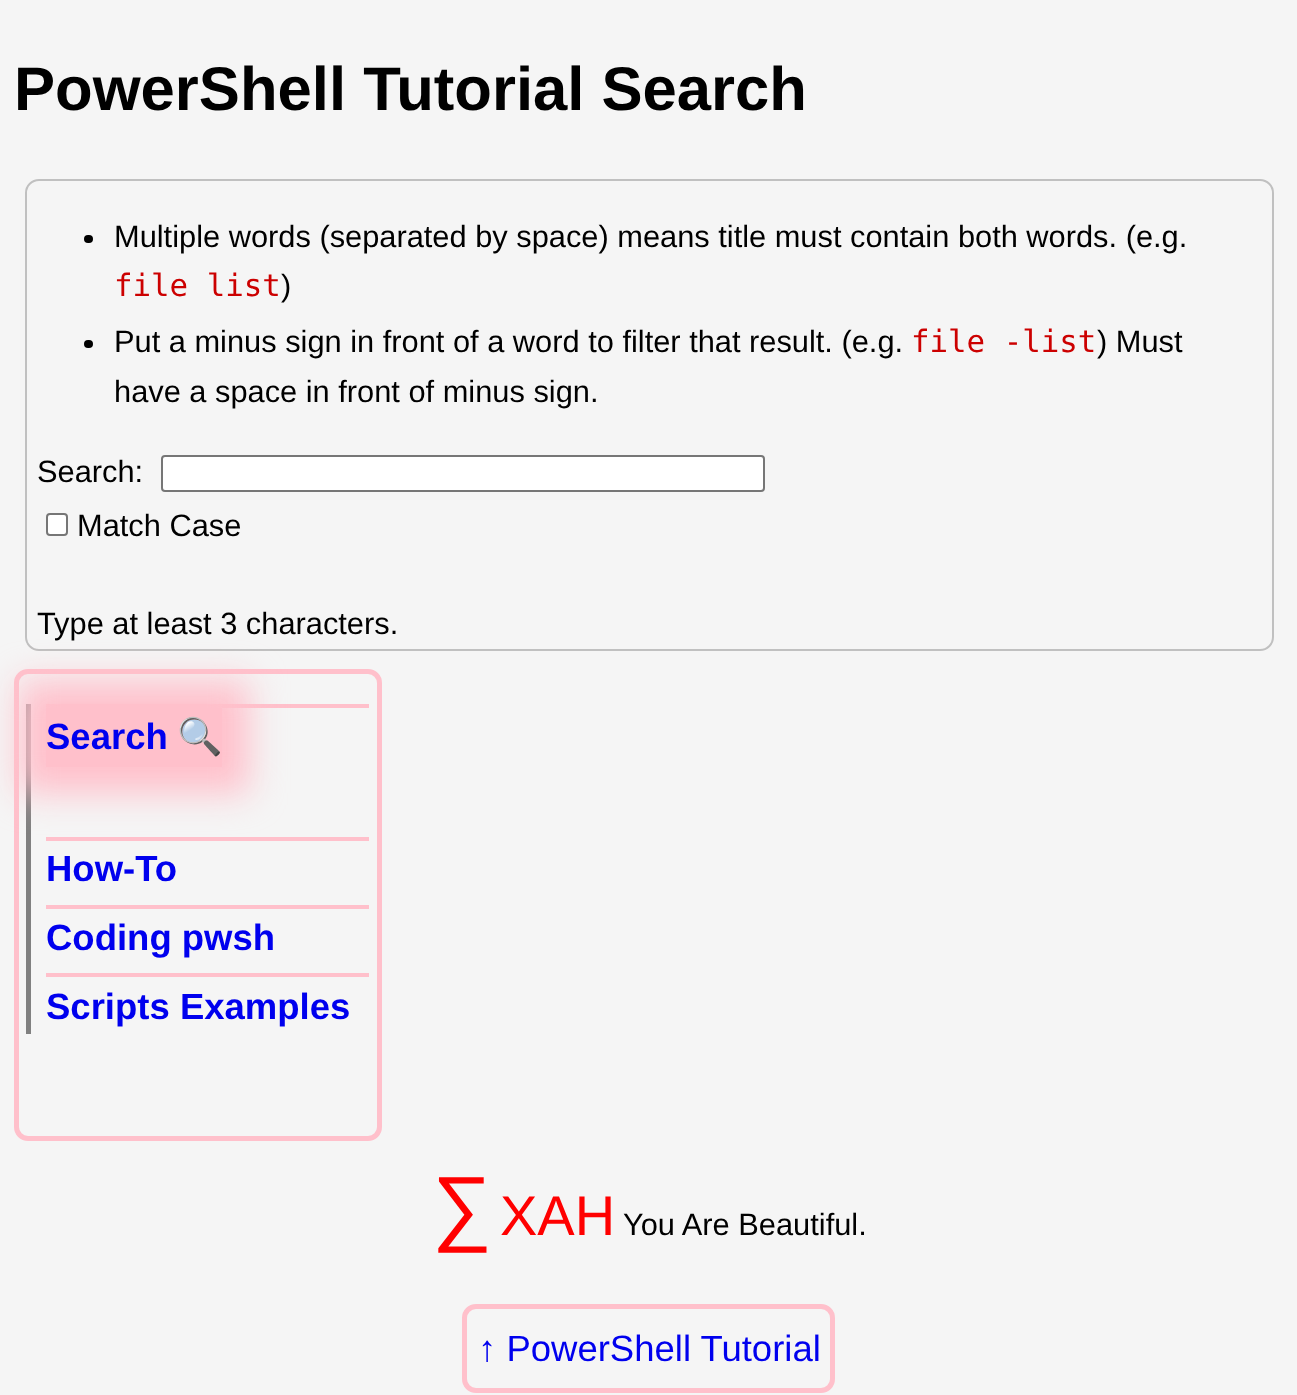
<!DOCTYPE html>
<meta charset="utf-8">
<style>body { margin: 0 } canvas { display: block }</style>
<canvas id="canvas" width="1297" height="1395"></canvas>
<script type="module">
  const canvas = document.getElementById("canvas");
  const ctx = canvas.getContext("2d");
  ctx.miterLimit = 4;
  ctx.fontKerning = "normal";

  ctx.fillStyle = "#f5f5f5";
  ctx.fillRect(0, 0, 1297, 1395);
  ctx.font = "bold 61.6px Liberation Sans";
  ctx.fillStyle = "#000000";
  ctx.fillText("PowerShell Tutorial Search", 14, 110);
  ctx.beginPath();
  ctx.roundRect(26, 180, 1247, 470, 13);
  ctx.strokeStyle = "#c0c0c0";
  ctx.lineWidth = 2;
  ctx.stroke();
  ctx.beginPath();
  ctx.roundRect(84, 235, 9, 8, 4);
  ctx.fill();
  ctx.font = "30.8px Liberation Sans";
  ctx.fillText("Multiple words (separated by space) means title must contain both words. (e.g.", 114, 247);
  ctx.font = "30.8px DejaVu Sans Mono";
  ctx.fillStyle = "#cc0000";
  ctx.fillText("file list", 114, 296);
  ctx.font = "30.8px Liberation Sans";
  ctx.fillStyle = "#000000";
  ctx.fillText(")", 281, 296);
  ctx.beginPath();
  ctx.roundRect(84, 340, 9, 8, 4);
  ctx.fill();
  ctx.fillText("Put a minus sign in front of a word to filter that result. (e.g.", 114, 352);
  ctx.font = "30.8px DejaVu Sans Mono";
  ctx.fillStyle = "#cc0000";
  ctx.fillText("file -list", 911, 352);
  ctx.font = "30.8px Liberation Sans";
  ctx.fillStyle = "#000000";
  ctx.fillText(") Must", 1097, 352);
  ctx.fillText("have a space in front of minus sign.", 114, 402);
  ctx.fillText("Search:", 37, 482);
  ctx.fillStyle = "#ffffff";
  ctx.beginPath();
  ctx.roundRect(162, 456, 602, 35, 3);
  ctx.fill();
  ctx.strokeStyle = "#767676";
  ctx.stroke();
  ctx.beginPath();
  ctx.roundRect(47, 514, 20, 21, 3);
  ctx.fill();
  ctx.stroke();
  ctx.fillStyle = "#000000";
  ctx.fillText("Match Case", 77, 536);
  ctx.fillText("Type at least 3 characters.", 37, 634);
  ctx.beginPath();
  ctx.roundRect(16.5, 671.5, 363, 467, 11.5);
  ctx.strokeStyle = "#ffc0cb";
  ctx.lineWidth = 5;
  ctx.stroke();
  ctx.fillStyle = "#808080";
  ctx.fillRect(26, 704, 5, 330);
  ctx.fillStyle = "#ffc0cb";
  ctx.fillRect(46, 704, 323, 4);
  ctx.fillRect(46, 837, 323, 4);
  ctx.filter = "blur(17.5px)";
  ctx.beginPath();
  ctx.rect(19, 681, 230, 112);
  ctx.fill();
  ctx.filter = "none";
  ctx.fillRect(46, 708, 176, 59);
  ctx.font = "bold 36.5px Liberation Sans";
  ctx.fillStyle = "#0000ee";
  ctx.fillText("Search", 46, 749);
  ctx.font = "bold 36.5px Noto Color Emoji";
  ctx.fillText("🔍", 177, 749);
  ctx.font = "bold 36.5px Liberation Sans";
  ctx.fillText("How-To", 46, 881);
  ctx.fillStyle = "#ffc0cb";
  ctx.fillRect(46, 905, 323, 4);
  ctx.fillStyle = "#0000ee";
  ctx.fillText("Coding pwsh", 46, 950);
  ctx.fillStyle = "#ffc0cb";
  ctx.fillRect(46, 973, 323, 4);
  ctx.fillStyle = "#0000ee";
  ctx.fillText("Scripts Examples", 46, 1019);
  ctx.font = "84px Liberation Sans";
  ctx.fillStyle = "#ff0000";
  ctx.fillText("∑", 432, 1235);
  ctx.font = "56px Liberation Sans";
  ctx.fillText("XAH", 500, 1235);
  ctx.font = "30.8px Liberation Sans";
  ctx.fillStyle = "#000000";
  ctx.fillText("You Are Beautiful.", 623, 1235);
  ctx.beginPath();
  ctx.roundRect(464.5, 1306.5, 368, 84, 11.5);
  ctx.stroke();
  ctx.font = "36.5px Liberation Sans";
  ctx.fillStyle = "#0000ee";
  ctx.fillText("↑ PowerShell Tutorial", 478, 1361);
</script>
